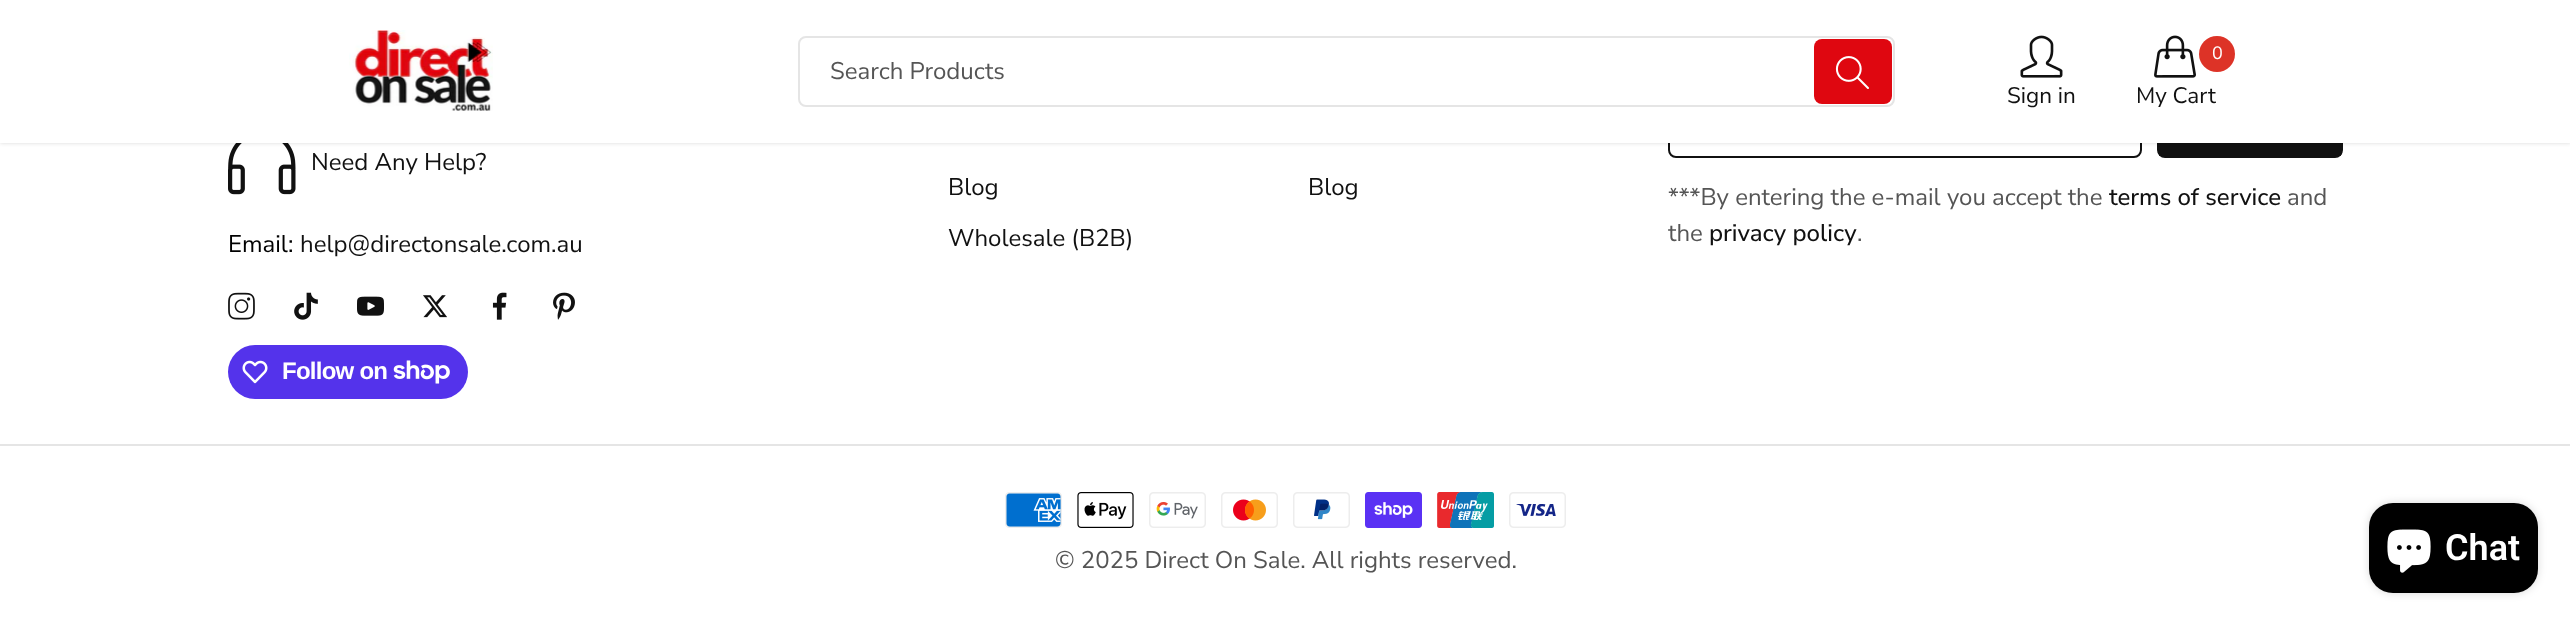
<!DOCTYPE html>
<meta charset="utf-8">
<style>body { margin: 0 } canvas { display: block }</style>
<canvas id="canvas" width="2570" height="624"></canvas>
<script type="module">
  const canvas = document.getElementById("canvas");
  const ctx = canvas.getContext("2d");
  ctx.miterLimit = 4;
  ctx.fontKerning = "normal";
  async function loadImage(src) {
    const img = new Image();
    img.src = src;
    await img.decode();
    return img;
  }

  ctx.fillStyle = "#ffffff";
  ctx.fillRect(0, 0, 2570, 624);
  ctx.drawImage(await loadImage("img5.png"), 228, 143, 68, 52);
  ctx.beginPath();
  ctx.roundRect(1669, 84, 472, 73, 7);
  ctx.strokeStyle = "#111111";
  ctx.lineWidth = 2;
  ctx.stroke();
  ctx.save();
  ctx.beginPath();
  ctx.roundRect(2157, 83, 186, 75, 8);
  ctx.clip();
  ctx.fillStyle = "#111111";
  ctx.fillRect(2159, 143, 183, 13);
  ctx.restore();
  ctx.beginPath();
  ctx.roundRect(2158, 84, 184, 73, 7);
  ctx.stroke();
  ctx.fillStyle = "rgba(0, 0, 0, 0.15)";
  ctx.filter = "blur(2px)";
  ctx.beginPath();
  ctx.rect(0, 0, 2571, 143);
  ctx.fill();
  ctx.filter = "none";
  ctx.fillStyle = "#ffffff";
  ctx.fillRect(0, 0, 2570, 143);
  ctx.drawImage(await loadImage("img1.png"), 349, 30, 144, 81);
  ctx.beginPath();
  ctx.roundRect(799, 37, 1095, 69, 7);
  ctx.strokeStyle = "#e5e5e5";
  ctx.stroke();
  ctx.font = "24px Nunito Sans";
  ctx.fillStyle = "#555555";
  ctx.fillText("Search Products", 830, 79);
  ctx.fillStyle = "#df0710";
  ctx.beginPath();
  ctx.roundRect(1814, 39, 78, 65, 8);
  ctx.fill();
  ctx.drawImage(await loadImage("img2.png"), 1835, 56, 34, 33);
  ctx.drawImage(await loadImage("img3.png"), 2020, 35, 43, 43);
  ctx.font = "22.5px Nunito Sans";
  ctx.fillStyle = "#111111";
  ctx.fillText("Sign in", 2007, 103);
  ctx.drawImage(await loadImage("img4.png"), 2154, 35, 42, 43);
  ctx.fillStyle = "#dd3327";
  ctx.beginPath();
  ctx.arc(2217, 54, 18, 0, Math.PI * 2);
  ctx.fill();
  ctx.font = "18px Nunito Sans";
  ctx.fillStyle = "#ffffff";
  ctx.fillText("0", 2212, 59);
  ctx.font = "22.5px Nunito Sans";
  ctx.fillStyle = "#111111";
  ctx.fillText("My Cart", 2136, 103);
  ctx.font = "24px Nunito Sans";
  ctx.fillText("Need Any Help?", 311, 170);
  ctx.fillStyle = "#000000";
  ctx.fillText("Email:", 228, 252);
  ctx.fillStyle = "#111111";
  ctx.fillText("help@directonsale.com.au", 300, 252);
  ctx.drawImage(await loadImage("img6.png"), 228, 292, 27, 28);
  ctx.drawImage(await loadImage("img7.png"), 294, 292, 24, 28);
  ctx.drawImage(await loadImage("img8.png"), 357, 296, 27, 20);
  ctx.drawImage(await loadImage("img9.png"), 423, 295, 24, 23);
  ctx.drawImage(await loadImage("img10.png"), 492, 292, 15, 28);
  ctx.drawImage(await loadImage("img11.png"), 553, 292, 22, 28);
  ctx.fillStyle = "#5433eb";
  ctx.beginPath();
  ctx.roundRect(228, 345, 240, 54, 27);
  ctx.fill();
  ctx.drawImage(await loadImage("img12.png"), 242, 360, 26, 24);
  ctx.letterSpacing = "-0.75px";
  ctx.font = "bold 24px Liberation Sans";
  ctx.fillStyle = "#ffffff";
  ctx.fillText("Follow on", 282, 379);
  ctx.drawImage(await loadImage("img13.png"), 393, 360, 57, 24);
  ctx.letterSpacing = "0px";
  ctx.font = "24px Nunito Sans";
  ctx.fillStyle = "#111111";
  ctx.fillText("Blog", 948, 195);
  ctx.fillText("Wholesale (B2B)", 948, 246);
  ctx.fillText("Blog", 1308, 195);
  ctx.fillStyle = "#555555";
  ctx.fillText("***By entering the e-mail you accept the", 1668, 205);
  ctx.font = "500 24px Nunito Sans";
  ctx.fillStyle = "#111111";
  ctx.fillText("terms of service", 2109, 205);
  ctx.font = "24px Nunito Sans";
  ctx.fillStyle = "#555555";
  ctx.fillText("and", 2287, 205);
  ctx.fillText("the", 1668, 241);
  ctx.font = "500 24px Nunito Sans";
  ctx.fillStyle = "#111111";
  ctx.fillText("privacy policy", 1709, 241);
  ctx.font = "24px Nunito Sans";
  ctx.fillStyle = "#555555";
  ctx.fillText(".", 1857, 241);
  ctx.fillStyle = "#e5e5e5";
  ctx.fillRect(0, 444, 2570, 2);
  ctx.drawImage(await loadImage("img14.png"), 1005, 492, 57, 36);
  ctx.drawImage(await loadImage("img15.png"), 1077, 492, 57, 36);
  ctx.drawImage(await loadImage("img16.png"), 1149, 492, 57, 36);
  ctx.drawImage(await loadImage("img17.png"), 1221, 492, 57, 36);
  ctx.drawImage(await loadImage("img18.png"), 1293, 492, 57, 36);
  ctx.drawImage(await loadImage("img19.png"), 1365, 492, 57, 36);
  ctx.drawImage(await loadImage("img20.png"), 1437, 492, 57, 36);
  ctx.drawImage(await loadImage("img21.png"), 1509, 492, 57, 36);
  ctx.fillStyle = "#555555";
  ctx.fillText("© 2025 Direct On Sale. All rights reserved.", 1055, 568);
  ctx.fillStyle = "rgba(0, 0, 0, 0.15)";
  ctx.filter = "blur(4px)";
  ctx.beginPath();
  ctx.roundRect(2369, 503, 169, 90, 24);
  ctx.fill();
  ctx.filter = "none";
  ctx.fillStyle = "#000000";
  ctx.beginPath();
  ctx.roundRect(2369, 503, 169, 90, 24);
  ctx.fill();
  ctx.drawImage(await loadImage("img22.png"), 2387, 529, 44, 44);
  ctx.font = "600 36px Roboto";
  ctx.fillStyle = "#ffffff";
  ctx.fillText("Chat", 2445, 560);
</script>
